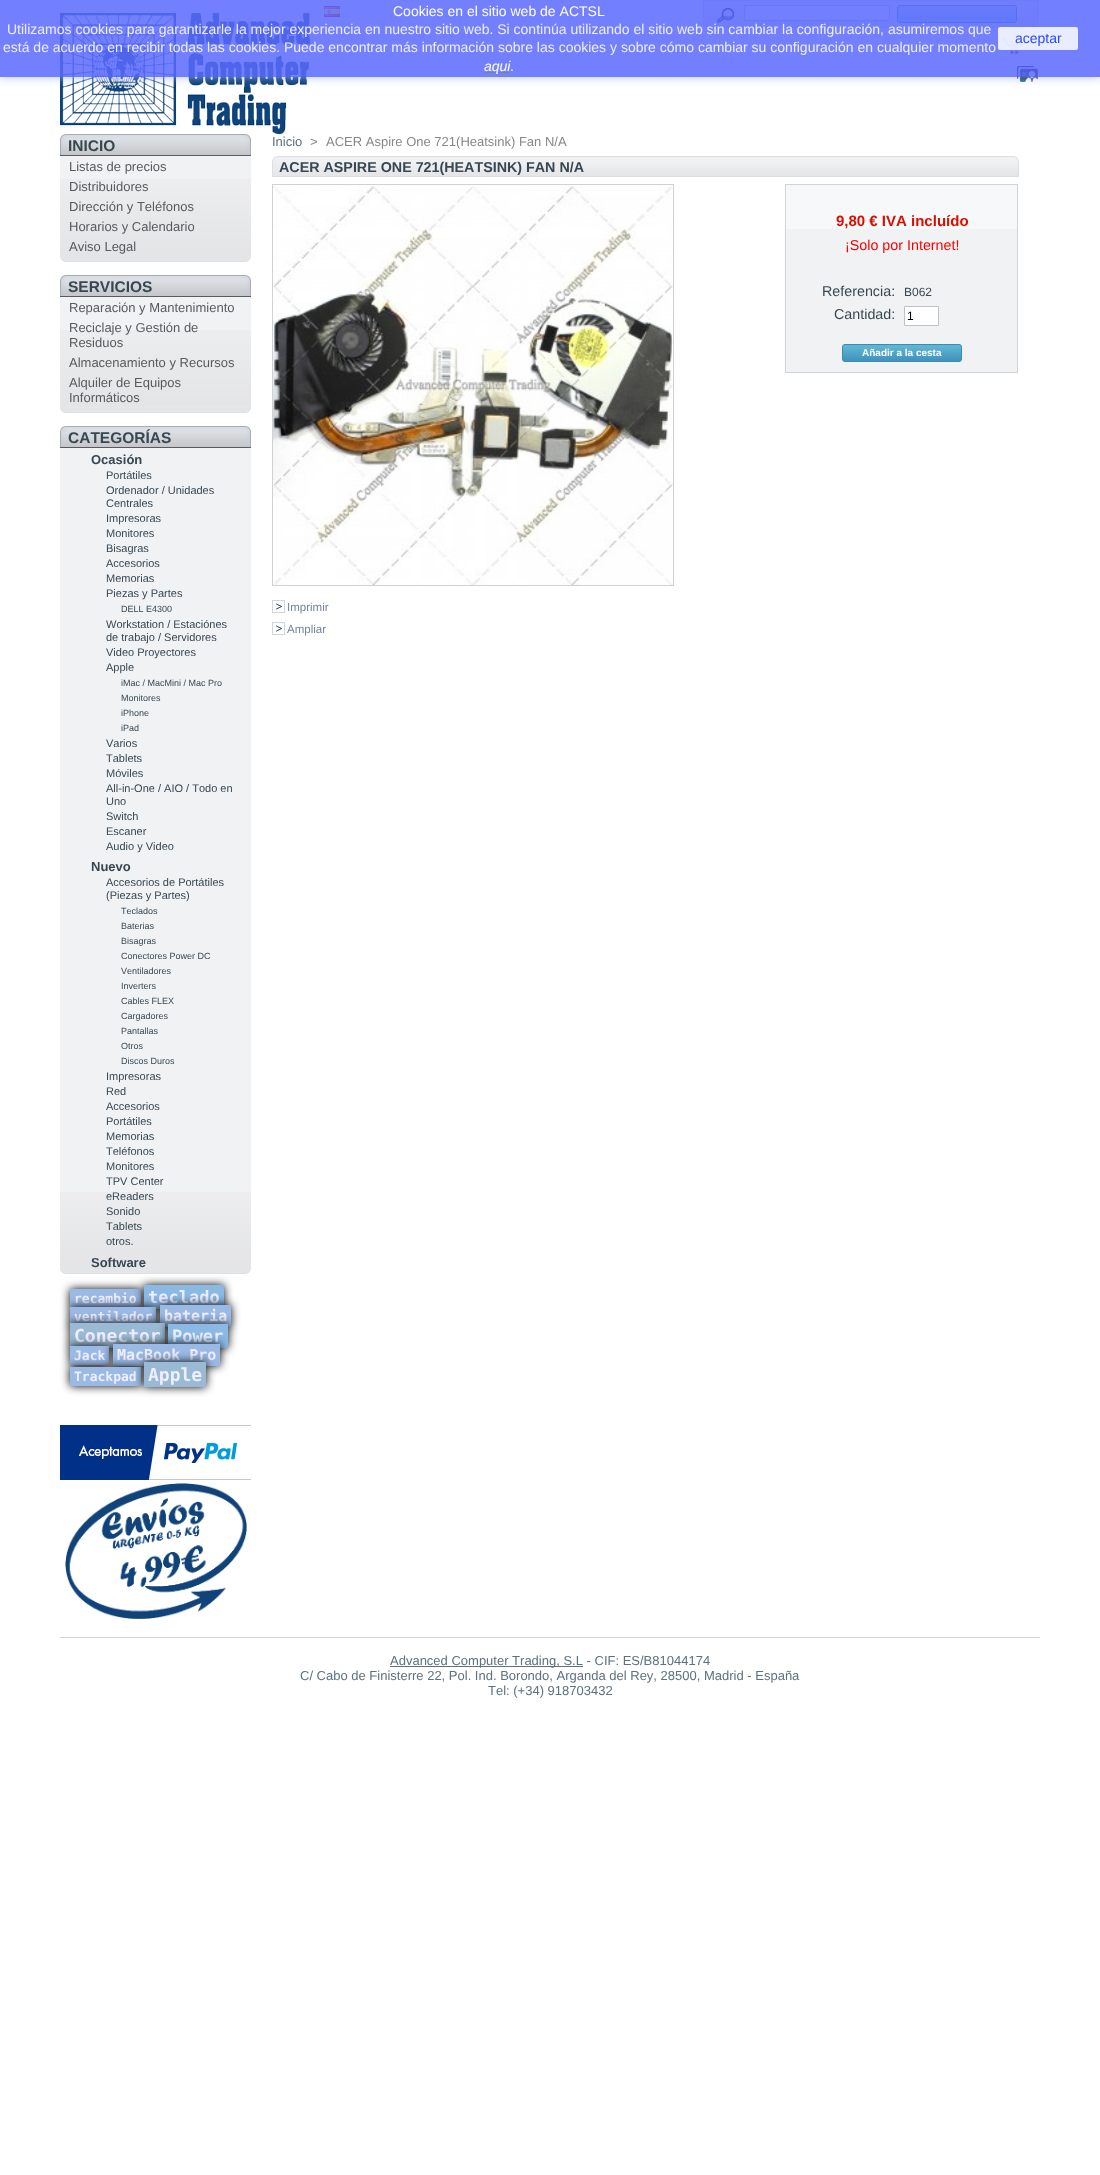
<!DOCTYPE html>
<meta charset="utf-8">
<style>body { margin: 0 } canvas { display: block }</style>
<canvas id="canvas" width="1100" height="2175"></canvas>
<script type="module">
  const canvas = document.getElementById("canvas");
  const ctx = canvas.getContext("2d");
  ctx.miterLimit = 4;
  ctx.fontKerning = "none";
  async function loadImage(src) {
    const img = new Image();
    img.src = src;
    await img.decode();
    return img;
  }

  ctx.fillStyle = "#ffffff";
  ctx.fillRect(0, 0, 1100, 2175);
  ctx.drawImage(await loadImage("img1.png"), 60, 13, 250, 121);
  ctx.drawImage(await loadImage("img2.png"), 324, 6, 16, 11);
  ctx.drawImage(await loadImage("img3.png"), 703, 0, 336, 28);
  ctx.drawImage(await loadImage("img4.png"), 717, 8, 17, 15);
  ctx.beginPath();
  ctx.rect(744.5, 5.5, 145, 15);
  ctx.fill();
  ctx.strokeStyle = "#bdc2c9";
  ctx.stroke();
  ctx.fillStyle = "#efefef";
  ctx.fillRect(897, 5, 120, 18);
  ctx.drawImage(await loadImage("img5.png"), 897, 5, 120, 18);
  ctx.drawImage(await loadImage("img6.png"), 1002, 39, 21, 15);
  ctx.drawImage(await loadImage("img7.png"), 1017, 66, 21, 16);
  ctx.fillStyle = "#d0d3d8";
  ctx.fillRect(60, 1637, 980, 1);
  ctx.save();
  ctx.beginPath();
  ctx.rect(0, 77, 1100, 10);
  ctx.clip();
  ctx.fillStyle = "rgba(158, 177, 255, 0.85)";
  ctx.filter = "blur(5px)";
  ctx.beginPath();
  ctx.rect(0, 0, 1100, 77);
  ctx.fill();
  ctx.filter = "none";
  ctx.restore();
  ctx.fillStyle = "rgba(89, 106, 255, 0.85)";
  ctx.fillRect(0, 0, 1100, 77);
  ctx.font = "14px Liberation Sans";
  ctx.fillStyle = "#ffffff";
  ctx.fillText("Cookies en el sitio web de ACTSL", 393, 16);
  ctx.fillStyle = "#eeeeff";
  ctx.fillText("Utilizamos cookies para garantizarle la mejor experiencia en nuestro sitio web. Si continúa utilizando el sitio web sin cambiar la configuración, asumiremos que", 7, 34);
  ctx.fillText("está de acuerdo en recibir todas las cookies. Puede encontrar más información sobre las cookies y sobre cómo cambiar su configuración en cualquier momento", 3, 52);
  ctx.fillStyle = "#758691";
  ctx.fillRect(484, 72, 26, 1);
  ctx.font = "italic 14px Liberation Sans";
  ctx.fillStyle = "#ffffff";
  ctx.fillText("aqui", 484, 71);
  ctx.font = "14px Liberation Sans";
  ctx.fillText(".", 510, 71);
  ctx.fillStyle = "rgba(255, 255, 255, 0.85)";
  ctx.beginPath();
  ctx.roundRect(998, 27, 80, 23, 2);
  ctx.fill();
  ctx.fillStyle = "#274bff";
  ctx.fillText("aceptar", 1015, 43);
  ctx.drawImage(await loadImage("img8.png"), 60, 257, 191, 5);
  ctx.drawImage(await loadImage("img9.png"), 60, 134, 191, 21);
  ctx.fillStyle = "#595a5e";
  ctx.fillRect(60, 155, 191, 1);
  ctx.font = "bold 15.5px Liberation Sans";
  ctx.fillStyle = "#374853";
  ctx.fillText("INICIO", 68, 151);
  ctx.fillStyle = "#f1f2f4";
  ctx.fillRect(60, 156, 191, 23);
  ctx.drawImage(await loadImage("img10.png"), 60, 179, 191, 78);
  ctx.font = "13px Liberation Sans";
  ctx.fillStyle = "#595a5e";
  ctx.fillText("Listas de precios", 69, 171);
  ctx.fillText("Distribuidores", 69, 191);
  ctx.fillText("Dirección y Teléfonos", 69, 211);
  ctx.fillText("Horarios y Calendario", 69, 231);
  ctx.fillText("Aviso Legal", 69, 251);
  ctx.drawImage(await loadImage("img8.png"), 60, 408, 191, 5);
  ctx.drawImage(await loadImage("img9.png"), 60, 275, 191, 21);
  ctx.fillRect(60, 296, 191, 1);
  ctx.font = "bold 15.5px Liberation Sans";
  ctx.fillStyle = "#374853";
  ctx.fillText("SERVICIOS", 68, 292);
  ctx.fillStyle = "#f1f2f4";
  ctx.fillRect(60, 297, 191, 33);
  ctx.drawImage(await loadImage("img11.png"), 60, 330, 191, 78);
  ctx.font = "13px Liberation Sans";
  ctx.fillStyle = "#595a5e";
  ctx.fillText("Reparación y Mantenimiento", 69, 312);
  ctx.fillText("Reciclaje y Gestión de", 69, 332);
  ctx.fillText("Residuos", 69, 347);
  ctx.fillText("Almacenamiento y Recursos", 69, 367);
  ctx.fillText("Alquiler de Equipos", 69, 387);
  ctx.fillText("Informáticos", 69, 402);
  ctx.drawImage(await loadImage("img8.png"), 60, 1269, 191, 5);
  ctx.drawImage(await loadImage("img9.png"), 60, 426, 191, 21);
  ctx.fillRect(60, 447, 191, 1);
  ctx.font = "bold 15.5px Liberation Sans";
  ctx.fillStyle = "#374853";
  ctx.fillText("CATEGORÍAS", 68, 443);
  ctx.fillStyle = "#f1f2f4";
  ctx.fillRect(60, 448, 191, 744);
  ctx.drawImage(await loadImage("img12.png"), 60, 1192, 191, 77);
  ctx.font = "bold 13px Liberation Sans";
  ctx.fillStyle = "#374853";
  ctx.fillText("Ocasión", 91, 464);
  ctx.font = "11px Liberation Sans";
  ctx.fillText("Portátiles", 106, 479);
  ctx.fillText("Ordenador / Unidades", 106, 494);
  ctx.fillText("Centrales", 106, 507);
  ctx.fillText("Impresoras", 106, 522);
  ctx.fillText("Monitores", 106, 537);
  ctx.fillText("Bisagras", 106, 552);
  ctx.fillText("Accesorios", 106, 567);
  ctx.fillText("Memorias", 106, 582);
  ctx.fillText("Piezas y Partes", 106, 597);
  ctx.font = "9px Liberation Sans";
  ctx.fillText("DELL E4300", 121, 612);
  ctx.font = "11px Liberation Sans";
  ctx.fillText("Workstation / Estaciónes", 106, 628);
  ctx.fillText("de trabajo / Servidores", 106, 641);
  ctx.fillText("Video Proyectores", 106, 656);
  ctx.fillText("Apple", 106, 671);
  ctx.font = "9px Liberation Sans";
  ctx.fillText("iMac / MacMini / Mac Pro", 121, 686);
  ctx.fillText("Monitores", 121, 701);
  ctx.fillText("iPhone", 121, 716);
  ctx.fillText("iPad", 121, 731);
  ctx.font = "11px Liberation Sans";
  ctx.fillText("Varios", 106, 747);
  ctx.fillText("Tablets", 106, 762);
  ctx.fillText("Móviles", 106, 777);
  ctx.fillText("All-in-One / AIO / Todo en", 106, 792);
  ctx.fillText("Uno", 106, 805);
  ctx.fillText("Switch", 106, 820);
  ctx.fillText("Escaner", 106, 835);
  ctx.fillText("Audio y Video", 106, 850);
  ctx.font = "bold 13px Liberation Sans";
  ctx.fillText("Nuevo", 91, 871);
  ctx.font = "11px Liberation Sans";
  ctx.fillText("Accesorios de Portátiles", 106, 886);
  ctx.fillText("(Piezas y Partes)", 106, 899);
  ctx.font = "9px Liberation Sans";
  ctx.fillText("Teclados", 121, 914);
  ctx.fillText("Baterias", 121, 929);
  ctx.fillText("Bisagras", 121, 944);
  ctx.fillText("Conectores Power DC", 121, 959);
  ctx.fillText("Ventiladores", 121, 974);
  ctx.fillText("Inverters", 121, 989);
  ctx.fillText("Cables FLEX", 121, 1004);
  ctx.fillText("Cargadores", 121, 1019);
  ctx.fillText("Pantallas", 121, 1034);
  ctx.fillText("Otros", 121, 1049);
  ctx.fillText("Discos Duros", 121, 1064);
  ctx.font = "11px Liberation Sans";
  ctx.fillText("Impresoras", 106, 1080);
  ctx.fillText("Red", 106, 1095);
  ctx.fillText("Accesorios", 106, 1110);
  ctx.fillText("Portátiles", 106, 1125);
  ctx.fillText("Memorias", 106, 1140);
  ctx.fillText("Teléfonos", 106, 1155);
  ctx.fillText("Monitores", 106, 1170);
  ctx.fillText("TPV Center", 106, 1185);
  ctx.fillText("eReaders", 106, 1200);
  ctx.fillText("Sonido", 106, 1215);
  ctx.fillText("Tablets", 106, 1230);
  ctx.fillText("otros.", 106, 1245);
  ctx.font = "bold 13px Liberation Sans";
  ctx.fillText("Software", 91, 1267);
  ctx.fillStyle = "#000000";
  ctx.filter = "blur(5px)";
  ctx.beginPath();
  ctx.rect(70, 1289, 71, 19);
  ctx.fill();
  ctx.filter = "none";
  ctx.fillStyle = "#9ab9e4";
  ctx.fillRect(70, 1289, 71, 18);
  ctx.font = "bold 13px DejaVu Sans Mono";
  ctx.fillStyle = "#eeeeff";
  ctx.fillText("recambio", 74, 1303);
  ctx.fillStyle = "#000000";
  ctx.filter = "blur(5px)";
  ctx.beginPath();
  ctx.rect(144, 1285, 80, 24);
  ctx.fill();
  ctx.filter = "none";
  ctx.fillStyle = "#8ab9e4";
  ctx.fillRect(144, 1285, 80, 24);
  ctx.font = "bold 17px DejaVu Sans Mono";
  ctx.fillStyle = "#eeeeff";
  ctx.fillText("teclado", 148, 1303);
  ctx.fillStyle = "#000000";
  ctx.filter = "blur(5px)";
  ctx.beginPath();
  ctx.rect(70, 1307, 86, 19);
  ctx.fill();
  ctx.filter = "none";
  ctx.fillStyle = "#9ab9e4";
  ctx.fillRect(70, 1307, 86, 16);
  ctx.font = "bold 13px DejaVu Sans Mono";
  ctx.fillStyle = "#eeeeff";
  ctx.fillText("ventilador", 74, 1321);
  ctx.fillStyle = "#000000";
  ctx.filter = "blur(5px)";
  ctx.beginPath();
  ctx.rect(160, 1305, 71, 22);
  ctx.fill();
  ctx.filter = "none";
  ctx.fillStyle = "#9ab9e4";
  ctx.fillRect(160, 1305, 71, 22);
  ctx.font = "bold 15px DejaVu Sans Mono";
  ctx.fillStyle = "#eeeeff";
  ctx.fillText("bateria", 164, 1321);
  ctx.fillStyle = "#000000";
  ctx.filter = "blur(5px)";
  ctx.beginPath();
  ctx.rect(70, 1323, 95, 25);
  ctx.fill();
  ctx.filter = "none";
  ctx.fillStyle = "#9ab9d4";
  ctx.fillRect(70, 1323, 95, 25);
  ctx.font = "bold 18px DejaVu Sans Mono";
  ctx.fillStyle = "#eeeeff";
  ctx.fillText("Conector", 74, 1342);
  ctx.fillStyle = "#000000";
  ctx.filter = "blur(5px)";
  ctx.beginPath();
  ctx.rect(168, 1324, 60, 24);
  ctx.fill();
  ctx.filter = "none";
  ctx.fillStyle = "#8ab9e4";
  ctx.fillRect(168, 1324, 60, 24);
  ctx.font = "bold 17px DejaVu Sans Mono";
  ctx.fillStyle = "#eeeeff";
  ctx.fillText("Power", 172, 1342);
  ctx.fillStyle = "#000000";
  ctx.filter = "blur(5px)";
  ctx.beginPath();
  ctx.rect(70, 1346, 39, 19);
  ctx.fill();
  ctx.filter = "none";
  ctx.fillStyle = "#9ab9e4";
  ctx.fillRect(70, 1346, 39, 19);
  ctx.font = "bold 13px DejaVu Sans Mono";
  ctx.fillStyle = "#eeeeff";
  ctx.fillText("Jack", 74, 1360);
  ctx.fillStyle = "#000000";
  ctx.filter = "blur(5px)";
  ctx.beginPath();
  ctx.rect(113, 1344, 107, 22);
  ctx.fill();
  ctx.filter = "none";
  ctx.fillStyle = "#9ab9e4";
  ctx.fillRect(113, 1344, 107, 22);
  ctx.font = "bold 15px DejaVu Sans Mono";
  ctx.fillStyle = "#eeeeff";
  ctx.fillText("MacBook Pro", 117, 1360);
  ctx.fillStyle = "#000000";
  ctx.filter = "blur(5px)";
  ctx.beginPath();
  ctx.rect(70, 1367, 71, 19);
  ctx.fill();
  ctx.filter = "none";
  ctx.fillStyle = "#9ab9e4";
  ctx.fillRect(70, 1367, 71, 19);
  ctx.font = "bold 13px DejaVu Sans Mono";
  ctx.fillStyle = "#eeeeff";
  ctx.fillText("Trackpad", 74, 1381);
  ctx.fillStyle = "#000000";
  ctx.filter = "blur(5px)";
  ctx.beginPath();
  ctx.rect(144, 1362, 62, 25);
  ctx.fill();
  ctx.filter = "none";
  ctx.fillStyle = "#9ab9d4";
  ctx.fillRect(144, 1362, 62, 25);
  ctx.font = "bold 18px DejaVu Sans Mono";
  ctx.fillStyle = "#eeeeff";
  ctx.fillText("Apple", 148, 1381);
  ctx.drawImage(await loadImage("img13.png"), 60, 1425, 191, 55);
  ctx.drawImage(await loadImage("img14.png"), 65, 1483, 182, 136);
  ctx.font = "13px Liberation Sans";
  ctx.fillStyle = "#5d717e";
  ctx.fillText("Inicio", 272, 146);
  ctx.fillStyle = "#888888";
  ctx.fillText(">", 310, 146);
  ctx.fillText("ACER Aspire One 721(Heatsink) Fan N/A", 326, 146);
  ctx.drawImage(await loadImage("img15.png"), 272, 156, 747, 21);
  ctx.font = "bold 14.3px Liberation Sans";
  ctx.fillStyle = "#374853";
  ctx.fillText("ACER ASPIRE ONE 721(HEATSINK) FAN N/A", 279, 172);
  ctx.fillStyle = "#f1f2f4";
  ctx.fillRect(786, 229, 231, 143);
  ctx.fillStyle = "#f7f8f9";
  ctx.fillRect(786, 185, 231, 44);
  ctx.strokeStyle = "#d0d3d8";
  ctx.strokeRect(785.5, 184.5, 232, 188);
  ctx.font = "bold 15px Liberation Sans";
  ctx.fillStyle = "#da0f00";
  ctx.fillText("9,80 € IVA incluído", 836, 226);
  ctx.font = "14.3px Liberation Sans";
  ctx.fillStyle = "#ff0000";
  ctx.fillText("¡Solo por Internet!", 845, 250);
  ctx.fillStyle = "#374853";
  ctx.fillText("Referencia:", 822, 296);
  ctx.font = "12px Liberation Sans";
  ctx.fillText("B062", 904, 296);
  ctx.font = "14.3px Liberation Sans";
  ctx.fillText("Cantidad:", 834, 319);
  ctx.fillStyle = "#ffffff";
  ctx.beginPath();
  ctx.rect(904.5, 306.5, 34, 19);
  ctx.fill();
  ctx.strokeStyle = "#bdc2c9";
  ctx.stroke();
  ctx.font = "12px Liberation Sans";
  ctx.fillStyle = "#000000";
  ctx.fillText("1", 907, 320);
  ctx.fillStyle = "#efefef";
  ctx.fillRect(842, 344, 120, 18);
  ctx.drawImage(await loadImage("img16.png"), 842, 344, 120, 18);
  ctx.font = "bold 10px Liberation Sans";
  ctx.fillStyle = "#ffffff";
  ctx.fillText("Añadir a la cesta", 862, 356);
  ctx.strokeStyle = "#d0d1d5";
  ctx.strokeRect(272.5, 184.5, 401, 401);
  ctx.drawImage(await loadImage("img17.png"), 273, 185, 400, 400);
  ctx.drawImage(await loadImage("img18.png"), 272, 600, 13, 13);
  ctx.font = "11.5px Liberation Sans";
  ctx.fillStyle = "#76839b";
  ctx.fillText("Imprimir", 287, 611);
  ctx.drawImage(await loadImage("img18.png"), 272, 622, 13, 13);
  ctx.fillText("Ampliar", 287, 633);
  ctx.fillStyle = "#5d717e";
  ctx.fillRect(390, 1666, 193, 1);
  ctx.font = "13px Liberation Sans";
  ctx.fillText("Advanced Computer Trading, S.L - CIF: ES/B81044174", 390, 1665);
  ctx.fillText("C/ Cabo de Finisterre 22, Pol. Ind. Borondo, Arganda del Rey, 28500, Madrid - España", 300, 1680);
  ctx.fillText("Tel: (+34) 918703432", 488, 1695);
</script>
